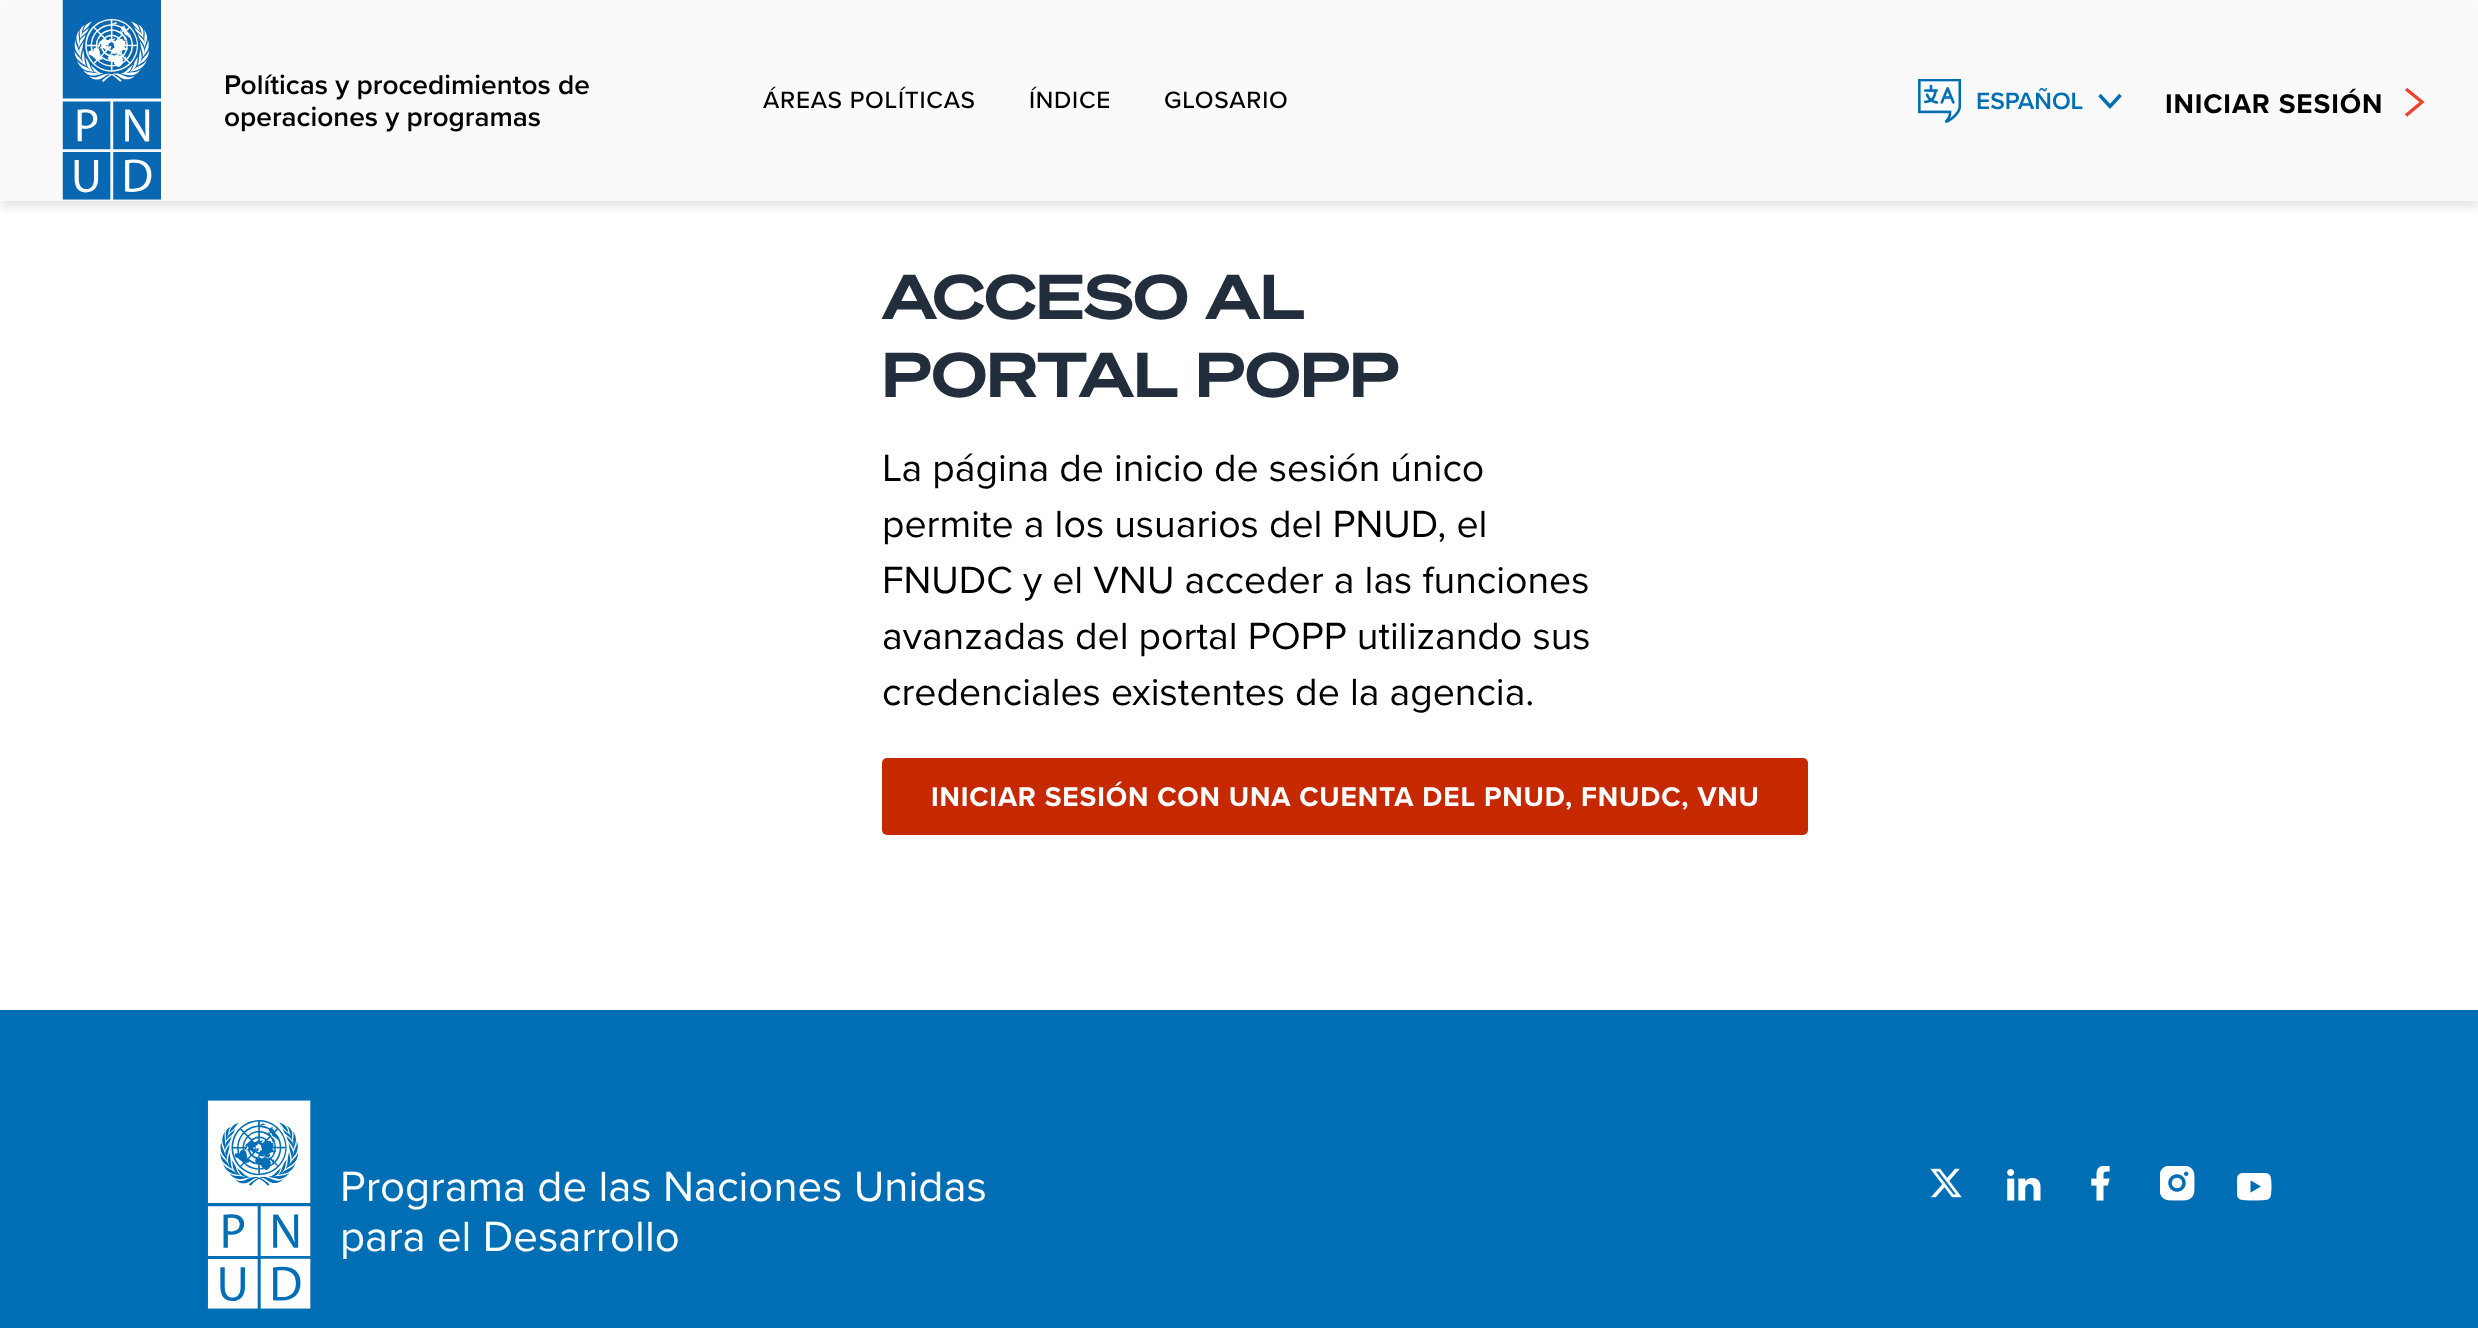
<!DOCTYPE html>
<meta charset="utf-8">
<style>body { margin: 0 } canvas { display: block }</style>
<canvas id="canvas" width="2478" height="1328"></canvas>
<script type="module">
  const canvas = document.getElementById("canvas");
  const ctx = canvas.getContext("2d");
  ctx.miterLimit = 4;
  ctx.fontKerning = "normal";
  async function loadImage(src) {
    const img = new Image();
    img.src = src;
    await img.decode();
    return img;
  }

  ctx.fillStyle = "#ffffff";
  ctx.fillRect(0, 0, 2478, 1328);
  ctx.fillStyle = "rgba(0, 0, 0, 0.1)";
  ctx.filter = "blur(5px)";
  ctx.beginPath();
  ctx.rect(0, 5, 2478, 202);
  ctx.fill();
  ctx.filter = "none";
  ctx.fillStyle = "#fafafa";
  ctx.fillRect(0, 2, 2478, 199);
  ctx.drawImage(await loadImage("img1.png"), 62, 0, 99, 200);
  ctx.font = "600 28px Proxima Nova";
  ctx.fillStyle = "#000000";
  ctx.fillText("Políticas y procedimientos de", 224, 94);
  ctx.fillText("operaciones y programas", 224, 126);
  ctx.letterSpacing = "0.75px";
  ctx.font = "500 24.5px Proxima Nova";
  ctx.fillText("ÁREAS POLÍTICAS", 763, 108);
  ctx.fillText("ÍNDICE", 1029, 108);
  ctx.fillText("GLOSARIO", 1164, 108);
  ctx.drawImage(await loadImage("img2.png"), 1918, 79, 43, 44);
  ctx.letterSpacing = "0px";
  ctx.font = "600 24.5px Proxima Nova";
  ctx.fillStyle = "#006eb5";
  ctx.fillText("ESPAÑOL", 1976, 109);
  ctx.beginPath();
  ctx.moveTo(2120.5, 95);
  ctx.lineTo(2110, 106.5);
  ctx.lineTo(2099.5, 95);
  ctx.strokeStyle = "#006eb5";
  ctx.lineWidth = 3.5;
  ctx.stroke();
  ctx.letterSpacing = "0.85px";
  ctx.font = "bold 28px Proxima Nova";
  ctx.fillStyle = "#000000";
  ctx.fillText("INICIAR SESIÓN", 2165, 113);
  ctx.beginPath();
  ctx.moveTo(2406, 89);
  ctx.lineTo(2422, 102);
  ctx.lineTo(2406, 115.5);
  ctx.strokeStyle = "#ee402d";
  ctx.lineWidth = 3.3;
  ctx.stroke();
  ctx.letterSpacing = "0px";
  ctx.font = "bold 61.5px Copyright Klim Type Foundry";
  ctx.fillStyle = "#232e3d";
  ctx.fillText("ACCESO AL", 882, 319);
  ctx.fillText("PORTAL POPP", 882, 397);
  ctx.font = "39.25px Proxima Nova";
  ctx.fillStyle = "#000000";
  ctx.fillText("La página de inicio de sesión único", 882, 481);
  ctx.fillText("permite a los usuarios del PNUD, el", 882, 537);
  ctx.fillText("FNUDC y el VNU acceder a las funciones", 882, 593);
  ctx.fillText("avanzadas del portal POPP utilizando sus", 882, 649);
  ctx.fillText("credenciales existentes de la agencia.", 882, 705);
  ctx.fillStyle = "#c62800";
  ctx.beginPath();
  ctx.roundRect(882, 758, 926, 77, 5);
  ctx.fill();
  ctx.letterSpacing = "0.85px";
  ctx.font = "bold 28px Proxima Nova";
  ctx.fillStyle = "#ffffff";
  ctx.fillText("INICIAR SESIÓN CON UNA CUENTA DEL PNUD, FNUDC, VNU", 931, 806);
  ctx.fillStyle = "#006eb5";
  ctx.fillRect(0, 1010, 2478, 318);
  ctx.drawImage(await loadImage("img3.png"), 207, 1100, 104, 209);
  ctx.letterSpacing = "0px";
  ctx.font = "43.75px Proxima Nova";
  ctx.fillStyle = "#ffffff";
  ctx.fillText("Programa de las Naciones Unidas", 340, 1201);
  ctx.fillText("para el Desarrollo", 340, 1251);
  ctx.drawImage(await loadImage("img4.png"), 1930, 1168, 32, 30);
  ctx.drawImage(await loadImage("img5.png"), 2007, 1169, 34, 32);
  ctx.drawImage(await loadImage("img6.png"), 2091, 1166, 19, 35);
  ctx.drawImage(await loadImage("img7.png"), 2160, 1166, 35, 35);
  ctx.drawImage(await loadImage("img8.png"), 2237, 1173, 35, 28);
</script>
